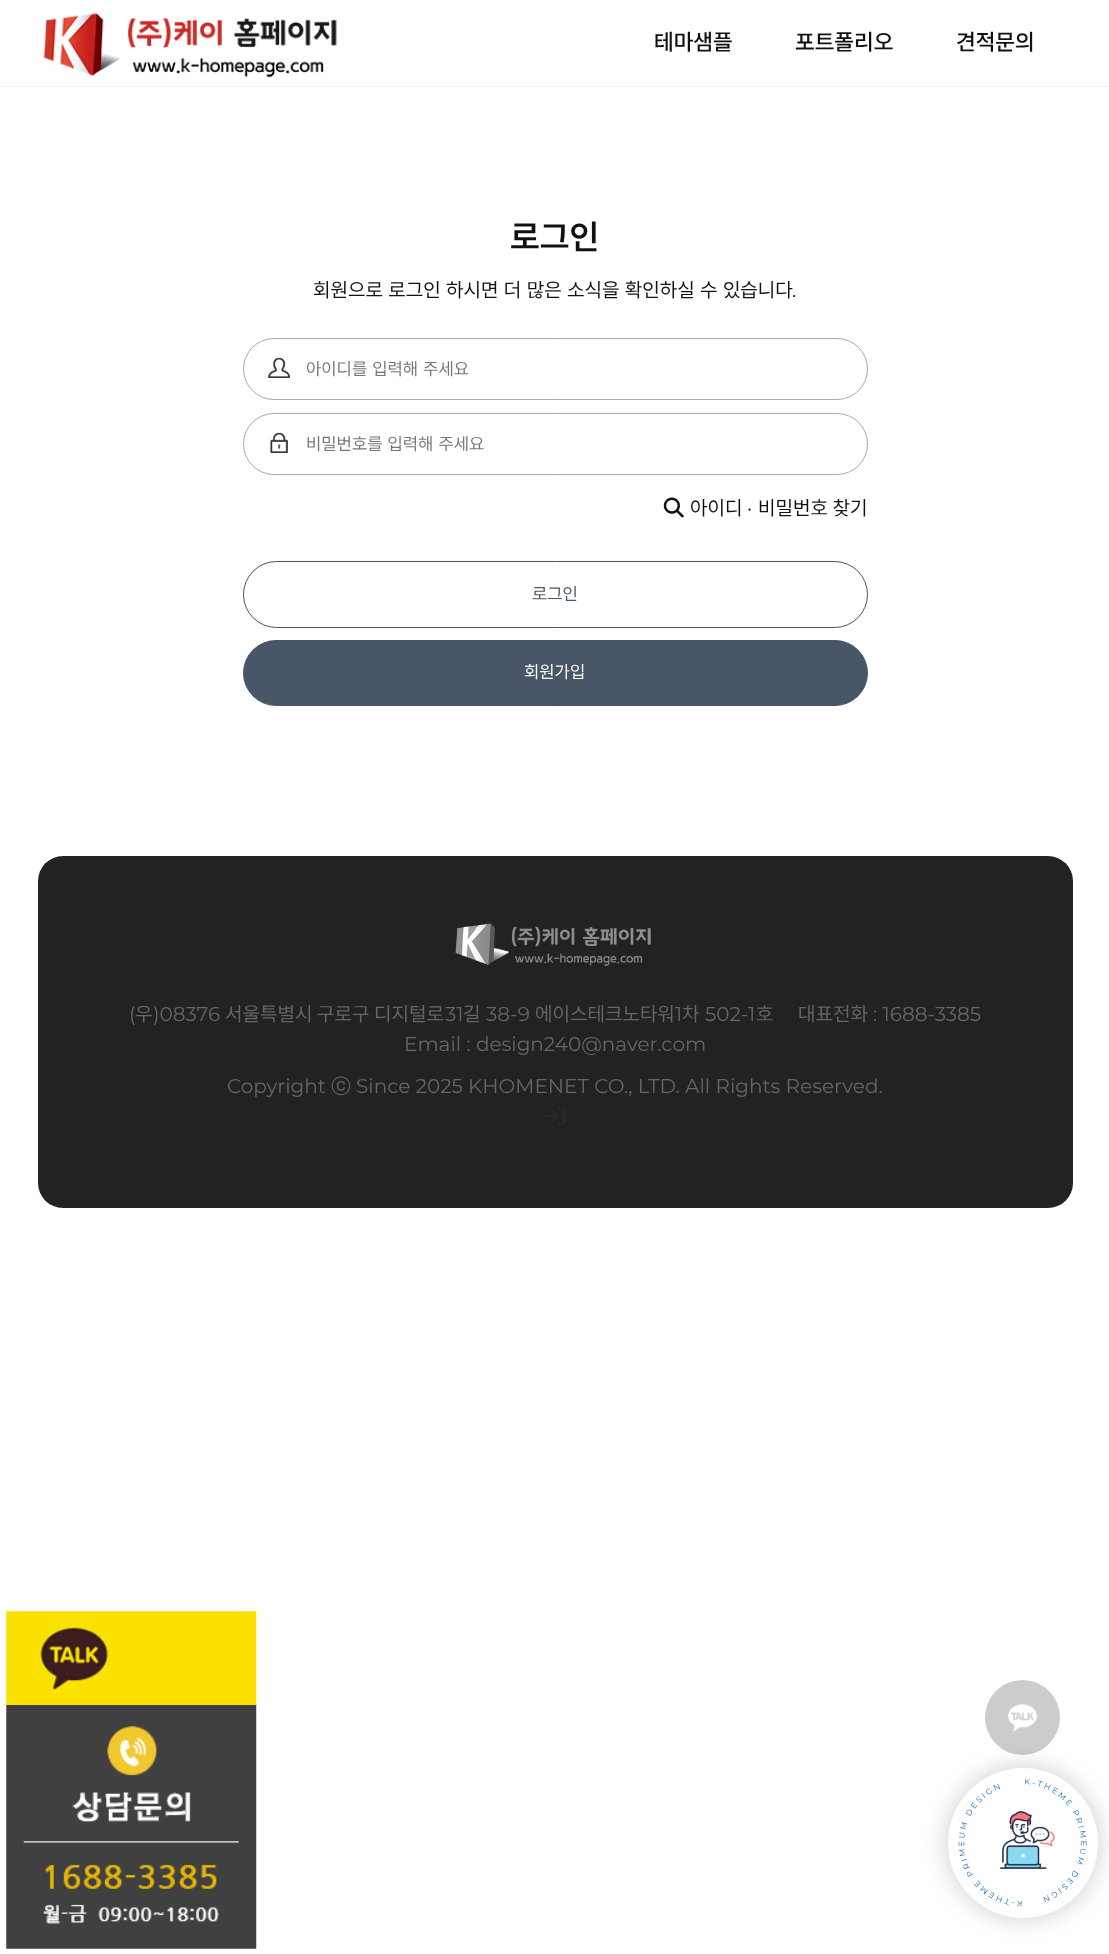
<!DOCTYPE html>
<meta charset="utf-8">
<style>body { margin: 0 } canvas { display: block }</style>
<canvas id="canvas" width="1109" height="1954"></canvas>
<script type="module">
  const canvas = document.getElementById("canvas");
  const ctx = canvas.getContext("2d");
  ctx.miterLimit = 4;
  ctx.fontKerning = "normal";
  async function loadImage(src) {
    const img = new Image();
    img.src = src;
    await img.decode();
    return img;
  }

  ctx.fillStyle = "#ffffff";
  ctx.fillRect(0, 0, 1109, 1954);
  ctx.fillStyle = "#eeeeee";
  ctx.fillRect(0, 86, 1109, 1);
  ctx.drawImage(await loadImage("img1.png"), 43, 13, 294, 65);
  ctx.font = "600 22.5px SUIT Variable";
  ctx.fillStyle = "#111111";
  ctx.fillText("테마샘플", 654, 50);
  ctx.fillText("포트폴리오", 795, 50);
  ctx.fillText("견적문의", 956, 50);
  ctx.font = "bold 34px SUIT Variable";
  ctx.fillText("로그인", 510, 249);
  ctx.wordSpacing = "0.75px";
  ctx.font = "20px SUIT Variable";
  ctx.fillText("회원으로 로그인 하시면 더 많은 소식을 확인하실 수 있습니다", 313, 297);
  ctx.wordSpacing = "0px";
  ctx.font = "20px Montserrat";
  ctx.fillText(".", 792, 297);
  ctx.beginPath();
  ctx.roundRect(243.5, 338.5, 624, 61, 30.5);
  ctx.strokeStyle = "#aaaaaa";
  ctx.stroke();
  ctx.drawImage(await loadImage("img2.png"), 268, 357, 22, 21);
  ctx.wordSpacing = "1px";
  ctx.font = "17.5px SUIT Variable";
  ctx.fillStyle = "#757575";
  ctx.fillText("아이디를 입력해 주세요", 306, 375);
  ctx.beginPath();
  ctx.roundRect(243.5, 413.5, 624, 61, 30.5);
  ctx.stroke();
  ctx.drawImage(await loadImage("img3.png"), 270, 432, 18, 21);
  ctx.fillText("비밀번호를 입력해 주세요", 306, 450);
  ctx.drawImage(await loadImage("img4.png"), 663, 497, 21, 21);
  ctx.wordSpacing = "0px";
  ctx.font = "20px SUIT Variable";
  ctx.fillStyle = "#111111";
  ctx.fillText("아이디", 690, 515);
  ctx.font = "20px Montserrat";
  ctx.fillText("·", 747, 515);
  ctx.font = "20px SUIT Variable";
  ctx.fillText("비밀번호 찾기", 758, 515);
  ctx.beginPath();
  ctx.roundRect(243.5, 561.5, 624, 66, 33);
  ctx.strokeStyle = "#485667";
  ctx.stroke();
  ctx.font = "17.5px SUIT Variable";
  ctx.fillStyle = "#485667";
  ctx.fillText("로그인", 532, 600);
  ctx.beginPath();
  ctx.roundRect(243.5, 640.5, 624, 65, 32.5);
  ctx.fill();
  ctx.stroke();
  ctx.fillStyle = "#ffffff";
  ctx.fillText("회원가입", 524, 678);
  ctx.fillStyle = "#222222";
  ctx.beginPath();
  ctx.roundRect(38, 856, 1035, 352, 25);
  ctx.fill();
  ctx.drawImage(await loadImage("img5.png"), 455, 923, 196, 43);
  ctx.font = "20px Montserrat";
  ctx.fillStyle = "#666666";
  ctx.fillText("(", 129, 1021);
  ctx.font = "20px SUIT Variable";
  ctx.fillText("우", 135, 1021);
  ctx.font = "20px Montserrat";
  ctx.fillText(")08376", 153, 1021);
  ctx.font = "20px SUIT Variable";
  ctx.fillText("서울특별시 구로구 디지털로", 225, 1021);
  ctx.font = "20px Montserrat";
  ctx.fillText("31", 445, 1021);
  ctx.font = "20px SUIT Variable";
  ctx.fillText("길", 463, 1021);
  ctx.font = "20px Montserrat";
  ctx.fillText("38-9", 486, 1021);
  ctx.font = "20px SUIT Variable";
  ctx.fillText("에이스테크노타워", 535, 1021);
  ctx.font = "20px Montserrat";
  ctx.fillText("1", 675, 1021);
  ctx.font = "20px SUIT Variable";
  ctx.fillText("차", 682, 1021);
  ctx.font = "20px Montserrat";
  ctx.fillText("502-1", 705, 1021);
  ctx.font = "20px SUIT Variable";
  ctx.fillText("호", 756, 1021);
  ctx.fillText("대표전화", 798, 1021);
  ctx.font = "20px Montserrat";
  ctx.fillText(": 1688-3385", 873, 1021);
  ctx.fillText("Email : design240@naver.com", 404, 1051);
  ctx.fillText("Copyright", 227, 1093);
  ctx.font = "500 20px WenQuanYi Zen Hei";
  ctx.fillText("ⓒ", 331, 1093);
  ctx.font = "20px Montserrat";
  ctx.fillText("Since 2025 KHOMENET CO., LTD. All Rights Reserved.", 356, 1093);
  ctx.drawImage(await loadImage("img6.png"), 545, 1108, 20, 17);
  ctx.drawImage(await loadImage("img7.png"), 6, 1611, 251, 94);
  ctx.drawImage(await loadImage("img8.png"), 6, 1705, 251, 244);
  ctx.fillStyle = "#cccccc";
  ctx.beginPath();
  ctx.arc(1022.5, 1717.5, 37.5, 0, Math.PI * 2);
  ctx.fill();
  ctx.drawImage(await loadImage("img9.png"), 1008, 1704, 30, 28);
  ctx.fillStyle = "rgba(0, 0, 0, 0.2)";
  ctx.filter = "blur(12.5px)";
  ctx.beginPath();
  ctx.roundRect(948, 1768, 150, 150, 75);
  ctx.fill();
  ctx.filter = "none";
  ctx.fillStyle = "#ffffff";
  ctx.beginPath();
  ctx.arc(1023, 1843, 75, 0, Math.PI * 2);
  ctx.fill();
  ctx.drawImage(await loadImage("img11.png"), 1000, 1811, 55, 58);
  ctx.drawImage(await loadImage("img10.png"), 958, 1778, 129, 129);
</script>
